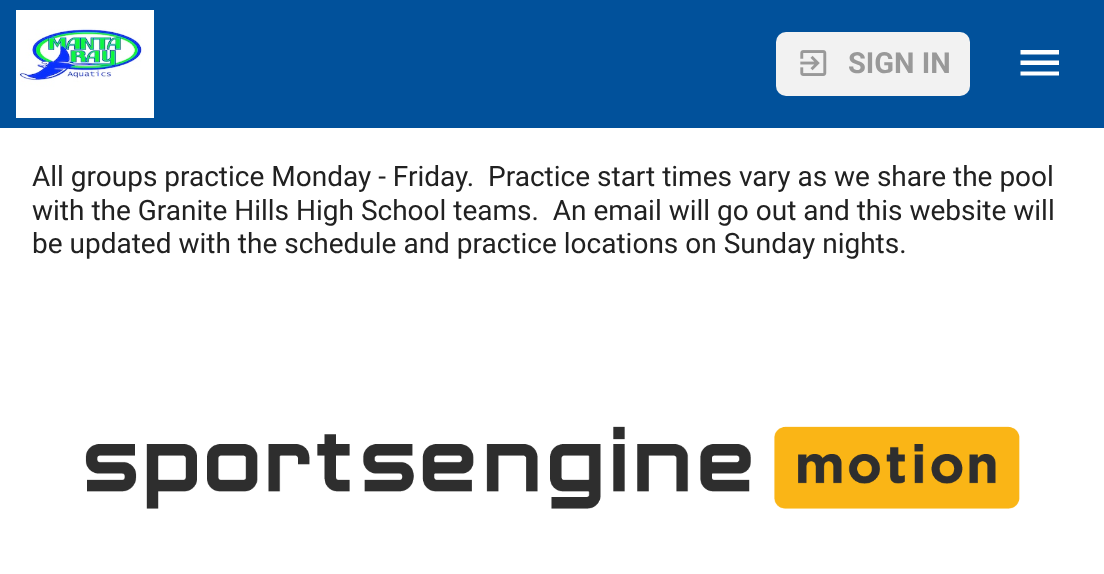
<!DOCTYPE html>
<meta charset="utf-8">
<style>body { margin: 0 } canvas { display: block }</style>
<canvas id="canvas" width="1104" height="574"></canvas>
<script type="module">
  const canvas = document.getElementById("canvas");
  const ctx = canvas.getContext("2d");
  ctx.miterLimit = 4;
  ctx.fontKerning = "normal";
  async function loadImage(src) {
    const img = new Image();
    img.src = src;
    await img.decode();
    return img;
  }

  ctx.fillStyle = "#ffffff";
  ctx.fillRect(0, 0, 1104, 574);
  ctx.fillStyle = "#01519b";
  ctx.fillRect(0, 0, 1104, 128);
  ctx.drawImage(await loadImage("img1.png"), 16, 10, 138, 108);
  ctx.fillStyle = "#f2f2f2";
  ctx.beginPath();
  ctx.roundRect(776, 32, 194, 64, 10);
  ctx.fill();
  ctx.drawImage(await loadImage("img2.png"), 800, 50, 27, 26);
  ctx.font = "bold 29px Roboto";
  ctx.fillStyle = "#999999";
  ctx.fillText("SIGN IN", 848, 73);
  ctx.fillStyle = "#ffffff";
  ctx.beginPath();
  ctx.moveTo(1020.5, 50);
  ctx.lineTo(1059, 50);
  ctx.lineTo(1059, 54.5);
  ctx.lineTo(1020.5, 54.5);
  ctx.closePath();
  ctx.moveTo(1020.5, 60.5);
  ctx.lineTo(1059, 60.5);
  ctx.lineTo(1059, 65);
  ctx.lineTo(1020.5, 65);
  ctx.closePath();
  ctx.moveTo(1020.5, 71.5);
  ctx.lineTo(1059, 71.5);
  ctx.lineTo(1059, 75.5);
  ctx.lineTo(1020.5, 75.5);
  ctx.closePath();
  ctx.fill();
  ctx.font = "28px Roboto";
  ctx.fillStyle = "#212121";
  ctx.fillText("All groups practice Monday - Friday.  Practice start times vary as we share the pool", 32, 186);
  ctx.fillText("with the Granite Hills High School teams.  An email will go out and this website will", 32, 220);
  ctx.fillText("be updated with the schedule and practice locations on Sunday nights.", 32, 253);
  ctx.drawImage(await loadImage("img3.png"), 85, 426, 935, 83);
</script>
